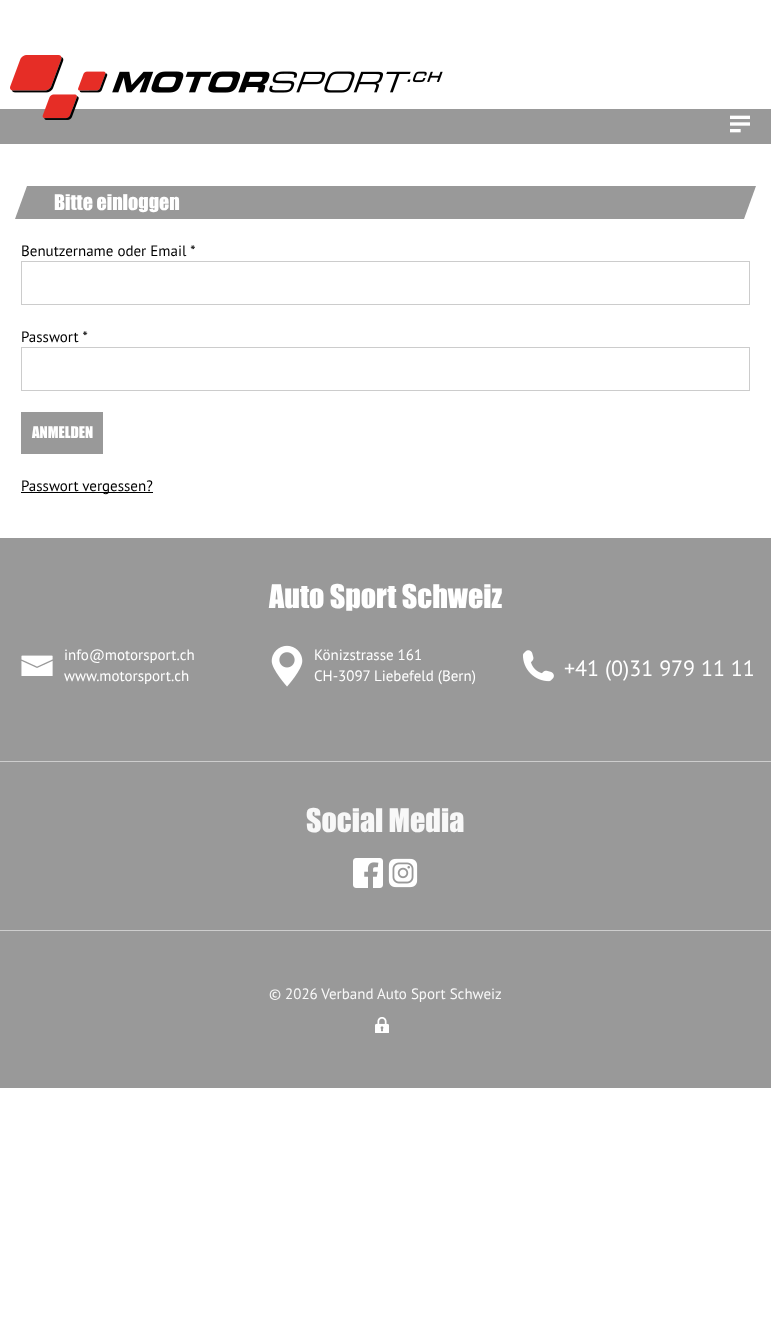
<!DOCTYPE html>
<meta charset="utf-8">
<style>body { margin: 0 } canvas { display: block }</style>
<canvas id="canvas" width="771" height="1334"></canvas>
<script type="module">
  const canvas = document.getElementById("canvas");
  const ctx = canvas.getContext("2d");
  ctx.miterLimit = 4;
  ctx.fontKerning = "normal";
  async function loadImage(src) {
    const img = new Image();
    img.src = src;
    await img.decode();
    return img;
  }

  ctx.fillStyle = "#ffffff";
  ctx.fillRect(0, 0, 771, 1334);
  ctx.fillStyle = "#999999";
  ctx.fillRect(0, 109, 771, 35);
  ctx.drawImage(await loadImage("img1.png"), 10, 55, 433, 65);
  ctx.drawImage(await loadImage("img2.png"), 730, 115, 20, 18);
  ctx.beginPath();
  ctx.moveTo(27, 186);
  ctx.lineTo(756, 186);
  ctx.lineTo(744, 219);
  ctx.lineTo(15, 219);
  ctx.closePath();
  ctx.fill();
  ctx.font = "20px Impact";
  ctx.fillStyle = "#ffffff";
  ctx.fillText("Bitte einloggen", 54, 210);
  ctx.font = "15px PT Sans";
  ctx.fillStyle = "#000000";
  ctx.fillText("Benutzername oder Email *", 21, 256);
  ctx.strokeStyle = "#cccccc";
  ctx.strokeRect(21.5, 261.5, 728, 43);
  ctx.fillText("Passwort *", 21, 342);
  ctx.strokeRect(21.5, 347.5, 728, 43);
  ctx.fillStyle = "#999999";
  ctx.fillRect(21, 412, 82, 42);
  ctx.font = "15px Impact";
  ctx.fillStyle = "#ffffff";
  ctx.fillText("ANMELDEN", 32, 438);
  ctx.fillStyle = "#000000";
  ctx.fillRect(21, 492, 132, 1);
  ctx.font = "15px PT Sans";
  ctx.fillText("Passwort vergessen?", 21, 491);
  ctx.fillStyle = "#999999";
  ctx.fillRect(0, 538, 771, 550);
  ctx.font = "30px Impact";
  ctx.fillStyle = "#ffffff";
  ctx.fillText("Auto Sport Schweiz", 269, 608);
  ctx.drawImage(await loadImage("img3.png"), 21, 655, 32, 21);
  ctx.font = "15px PT Sans";
  ctx.fillText("info@motorsport.ch", 64, 660);
  ctx.fillText("www.motorsport.ch", 64, 681);
  ctx.drawImage(await loadImage("img4.png"), 271, 645, 32, 42);
  ctx.fillText("Könizstrasse 161", 314, 660);
  ctx.fillText("CH-3097 Liebefeld (Bern)", 314, 681);
  ctx.drawImage(await loadImage("img5.png"), 523, 650, 31, 32);
  ctx.font = "22px PT Sans";
  ctx.fillText("+41 (0)31 979 11 11", 564, 676);
  ctx.fillStyle = "#cdcdcd";
  ctx.fillRect(0, 761, 771, 1);
  ctx.font = "30px Impact";
  ctx.fillStyle = "#f8f8f8";
  ctx.fillText("Social Media", 306, 832);
  ctx.drawImage(await loadImage("img6.png"), 353, 858, 30, 30);
  ctx.drawImage(await loadImage("img7.png"), 388, 858, 30, 30);
  ctx.fillStyle = "#cdcdcd";
  ctx.fillRect(0, 930, 771, 1);
  ctx.font = "15px PT Sans";
  ctx.fillStyle = "#f8f8f8";
  ctx.fillText("© 2026 Verband Auto Sport Schweiz", 269, 999);
  ctx.drawImage(await loadImage("img8.png"), 375, 1017, 14, 16);
</script>
